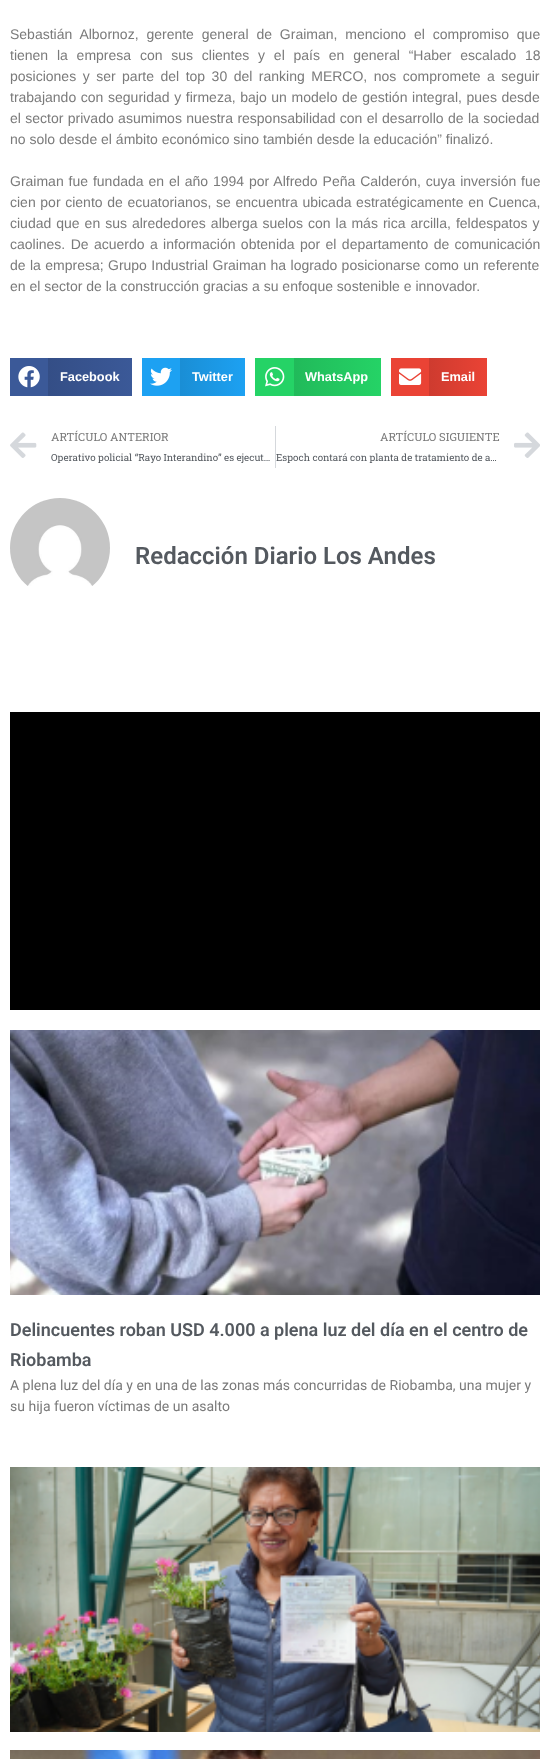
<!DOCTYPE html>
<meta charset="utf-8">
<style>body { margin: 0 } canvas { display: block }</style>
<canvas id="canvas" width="550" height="1759"></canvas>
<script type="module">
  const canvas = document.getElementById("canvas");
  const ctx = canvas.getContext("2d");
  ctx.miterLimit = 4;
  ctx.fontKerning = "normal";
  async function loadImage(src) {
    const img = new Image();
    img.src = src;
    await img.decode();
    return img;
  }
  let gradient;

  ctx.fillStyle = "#ffffff";
  ctx.fillRect(0, 0, 550, 1759);
  ctx.wordSpacing = "4px";
  ctx.font = "14px Liberation Sans";
  ctx.fillStyle = "#7a7a7a";
  ctx.fillText("Sebastián Albornoz, gerente general de Graiman, menciono el compromiso que", 10, 39);
  ctx.wordSpacing = "4.9px";
  ctx.fillText("tienen la empresa con sus clientes y el país en general “Haber escalado 18", 10, 60);
  ctx.wordSpacing = "2.6px";
  ctx.fillText("posiciones y ser parte del top 30 del ranking MERCO, nos compromete a seguir", 10, 81);
  ctx.wordSpacing = "0.75px";
  ctx.fillText("trabajando con seguridad y firmeza, bajo un modelo de gestión integral, pues desde", 10, 102);
  ctx.wordSpacing = "0.5px";
  ctx.fillText("el sector privado asumimos nuestra responsabilidad con el desarrollo de la sociedad", 10, 123);
  ctx.wordSpacing = "0px";
  ctx.fillText("no solo desde el ámbito económico sino también desde la educación” finalizó.", 10, 144);
  ctx.wordSpacing = "1px";
  ctx.fillText("Graiman fue fundada en el año 1994 por Alfredo Peña Calderón, cuya inversión fue", 10, 186);
  ctx.wordSpacing = "0.75px";
  ctx.fillText("cien por ciento de ecuatorianos, se encuentra ubicada estratégicamente en Cuenca,", 10, 207);
  ctx.wordSpacing = "1.1px";
  ctx.fillText("ciudad que en sus alrededores alberga suelos con la más rica arcilla, feldespatos y", 10, 228);
  ctx.wordSpacing = "1.5px";
  ctx.fillText("caolines. De acuerdo a información obtenida por el departamento de comunicación", 10, 249);
  ctx.wordSpacing = "0.5px";
  ctx.fillText("de la empresa; Grupo Industrial Graiman ha logrado posicionarse como un referente", 10, 270);
  ctx.wordSpacing = "0px";
  ctx.fillText("en el sector de la construcción gracias a su enfoque sostenible e innovador.", 10, 291);
  ctx.fillStyle = "#3b5998";
  ctx.fillRect(10, 358, 38, 38);
  ctx.drawImage(await loadImage("img1.png"), 18, 366, 22, 22);
  gradient = ctx.createLinearGradient(48, 377, 132, 377);
  gradient.addColorStop(0, "#344e86");
  gradient.addColorStop(1, "#3b5998");
  ctx.fillStyle = gradient;
  ctx.fillRect(48, 358, 84, 38);
  ctx.font = "bold 12.75px Liberation Sans";
  ctx.fillStyle = "#ffffff";
  ctx.fillText("Facebook", 60, 381);
  ctx.fillStyle = "#1da1f2";
  ctx.fillRect(142, 358, 38, 38);
  ctx.drawImage(await loadImage("img2.png"), 150, 367, 22, 19);
  gradient = ctx.createLinearGradient(180, 377, 245, 377);
  gradient.addColorStop(0, "#1a8ed5");
  gradient.addColorStop(1, "#1da1f2");
  ctx.fillStyle = gradient;
  ctx.fillRect(180, 358, 65, 38);
  ctx.fillStyle = "#ffffff";
  ctx.fillText("Twitter", 192, 381);
  ctx.fillStyle = "#25d366";
  ctx.fillRect(255, 358, 39, 38);
  ctx.drawImage(await loadImage("img3.png"), 265, 367, 20, 20);
  gradient = ctx.createLinearGradient(294, 377, 381, 377);
  gradient.addColorStop(0, "#21ba5a");
  gradient.addColorStop(1, "#25d366");
  ctx.fillStyle = gradient;
  ctx.fillRect(294, 358, 87, 38);
  ctx.fillStyle = "#ffffff";
  ctx.fillText("WhatsApp", 305, 381);
  ctx.fillStyle = "#ea4335";
  ctx.fillRect(391, 358, 38, 38);
  ctx.drawImage(await loadImage("img4.png"), 399, 368, 23, 17);
  gradient = ctx.createLinearGradient(429, 377, 487, 377);
  gradient.addColorStop(0, "#ce3b2f");
  gradient.addColorStop(1, "#ea4335");
  ctx.fillStyle = gradient;
  ctx.fillRect(429, 358, 58, 38);
  ctx.fillStyle = "#ffffff";
  ctx.fillText("Email", 441, 381);
  ctx.drawImage(await loadImage("img5.png"), 10, 432, 27, 26);
  ctx.font = "11.25px Roboto Slab";
  ctx.fillStyle = "#7a7a7a";
  ctx.fillText("ARTÍCULO ANTERIOR", 51, 441);
  ctx.font = "9.8px Roboto Slab";
  ctx.fillStyle = "#54595f";
  ctx.fillText("Operativo policial “Rayo Interandino” es ejecut…", 51, 461);
  ctx.fillStyle = "#d5d8dc";
  ctx.fillRect(275, 426, 1, 42);
  ctx.font = "11.25px Roboto Slab";
  ctx.fillStyle = "#7a7a7a";
  ctx.fillText("ARTÍCULO SIGUIENTE", 380, 441);
  ctx.font = "9.8px Roboto Slab";
  ctx.fillStyle = "#54595f";
  ctx.fillText("Espoch contará con planta de tratamiento de a…", 276, 461);
  ctx.drawImage(await loadImage("img6.png"), 514, 432, 26, 26);
  ctx.drawImage(await loadImage("img7.png"), 10, 498, 100, 88);
  ctx.font = "600 24px Roboto";
  ctx.fillText("Redacción Diario Los Andes", 135, 564);
  ctx.fillStyle = "#000000";
  ctx.fillRect(10, 712, 530, 298);
  ctx.drawImage(await loadImage("img8.png"), 10, 1030, 530, 265);
  ctx.font = "600 18px Roboto";
  ctx.fillStyle = "#54595f";
  ctx.fillText("Delincuentes roban USD 4.000 a plena luz del día en el centro de", 10, 1336);
  ctx.fillText("Riobamba", 10, 1366);
  ctx.font = "14px Roboto";
  ctx.fillStyle = "#7a7a7a";
  ctx.fillText("A plena luz del día y en una de las zonas más concurridas de Riobamba, una mujer y", 10, 1390);
  ctx.fillText("su hija fueron víctimas de un asalto", 10, 1411);
  ctx.drawImage(await loadImage("img9.png"), 10, 1467, 530, 265);
  ctx.drawImage(await loadImage("img10.png"), 10, 1750, 530, 9);
</script>
